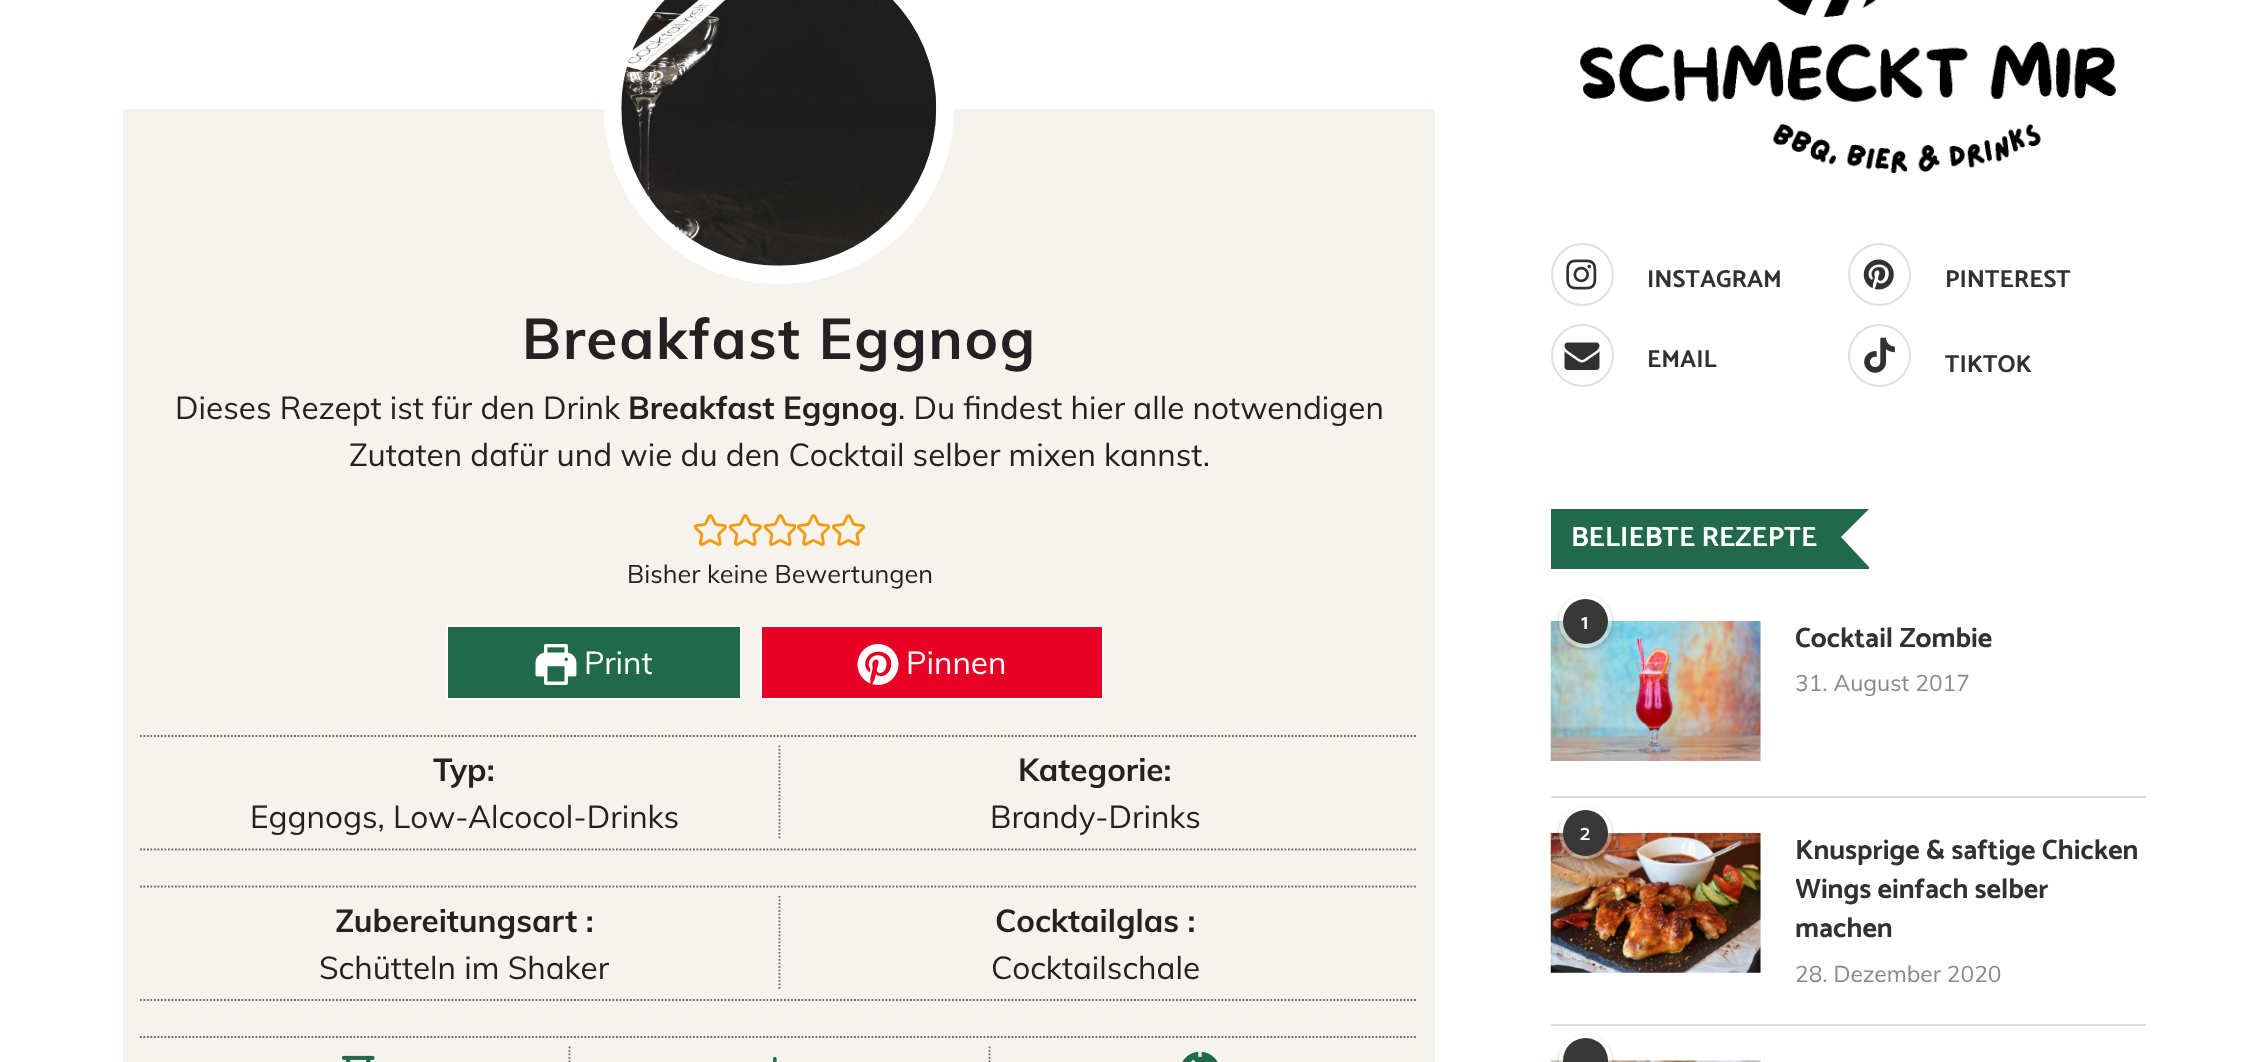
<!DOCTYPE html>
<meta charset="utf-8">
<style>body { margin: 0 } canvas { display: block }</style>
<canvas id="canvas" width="2241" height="1062"></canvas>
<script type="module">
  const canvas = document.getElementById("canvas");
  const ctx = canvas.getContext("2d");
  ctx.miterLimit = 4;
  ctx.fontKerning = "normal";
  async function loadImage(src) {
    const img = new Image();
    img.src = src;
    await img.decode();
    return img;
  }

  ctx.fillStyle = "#ffffff";
  ctx.fillRect(0, 0, 2241, 1062);
  ctx.fillStyle = "#f6f3ee";
  ctx.fillRect(123, 109, 1312, 953);
  ctx.beginPath();
  ctx.arc(779, 109, 166, 0, Math.PI * 2);
  ctx.strokeStyle = "#ffffff";
  ctx.lineWidth = 18;
  ctx.stroke();
  ctx.drawImage(await loadImage("img1.png"), 621, 0, 316, 266);
  ctx.letterSpacing = "1.75px";
  ctx.font = "bold 56.75px Muli";
  ctx.fillStyle = "#262022";
  ctx.fillText("Breakfast Eggnog", 522, 359);
  ctx.letterSpacing = "0px";
  ctx.font = "31.5px Muli";
  ctx.fillText("Dieses Rezept ist für den Drink", 175, 419);
  ctx.font = "bold 31.5px Muli";
  ctx.fillText("Breakfast Eggnog", 628, 419);
  ctx.font = "31.5px Muli";
  ctx.fillText(". Du findest hier alle notwendigen", 898, 419);
  ctx.fillText("Zutaten dafür und wie du den Cocktail selber mixen kannst.", 349, 466);
  ctx.drawImage(await loadImage("img2.png"), 693, 514, 34, 32);
  ctx.drawImage(await loadImage("img2.png"), 728, 514, 34, 32);
  ctx.drawImage(await loadImage("img3.png"), 763, 514, 33, 32);
  ctx.drawImage(await loadImage("img4.png"), 797, 514, 34, 32);
  ctx.drawImage(await loadImage("img4.png"), 832, 514, 34, 32);
  ctx.font = "25.25px Muli";
  ctx.fillText("Bisher keine Bewertungen", 627, 583);
  ctx.fillStyle = "#21694d";
  ctx.beginPath();
  ctx.rect(447, 626, 294, 73);
  ctx.fill();
  ctx.lineWidth = 2;
  ctx.stroke();
  ctx.drawImage(await loadImage("img5.png"), 535, 644, 42, 41);
  ctx.font = "31.5px Muli";
  ctx.fillStyle = "#ffffff";
  ctx.fillText("Print", 584, 674);
  ctx.fillStyle = "#e60023";
  ctx.beginPath();
  ctx.rect(761, 626, 342, 73);
  ctx.fill();
  ctx.stroke();
  ctx.drawImage(await loadImage("img6.png"), 857, 644, 42, 41);
  ctx.fillStyle = "#ffffff";
  ctx.fillText("Pinnen", 906, 674);
  ctx.beginPath();
  ctx.moveTo(140, 736);
  ctx.lineTo(1417.5, 736);
  ctx.strokeStyle = "#666666";
  ctx.lineWidth = 1.8;
  ctx.setLineDash([1.75, 1.75]);
  ctx.stroke();
  ctx.beginPath();
  ctx.moveTo(140, 849.5);
  ctx.lineTo(1417.5, 849.5);
  ctx.stroke();
  ctx.font = "bold 31.5px Muli";
  ctx.fillStyle = "#262022";
  ctx.fillText("Typ:", 433, 781);
  ctx.font = "31.5px Muli";
  ctx.fillText("Eggnogs, Low-Alcocol-Drinks", 250, 828);
  ctx.beginPath();
  ctx.moveTo(779.5, 745.5);
  ctx.lineTo(779.5, 840);
  ctx.stroke();
  ctx.font = "bold 31.5px Muli";
  ctx.fillText("Kategorie:", 1018, 781);
  ctx.font = "31.5px Muli";
  ctx.fillText("Brandy-Drinks", 990, 828);
  ctx.beginPath();
  ctx.moveTo(140, 886.5);
  ctx.lineTo(1417.5, 886.5);
  ctx.stroke();
  ctx.beginPath();
  ctx.moveTo(140, 1000);
  ctx.lineTo(1417.5, 1000);
  ctx.stroke();
  ctx.font = "bold 31.5px Muli";
  ctx.fillText("Zubereitungsart :", 335, 932);
  ctx.font = "31.5px Muli";
  ctx.fillText("Schütteln im Shaker", 319, 979);
  ctx.beginPath();
  ctx.moveTo(779.5, 896);
  ctx.lineTo(779.5, 990.5);
  ctx.stroke();
  ctx.font = "bold 31.5px Muli";
  ctx.fillText("Cocktailglas :", 995, 932);
  ctx.font = "31.5px Muli";
  ctx.fillText("Cocktailschale", 991, 979);
  ctx.beginPath();
  ctx.moveTo(140, 1037);
  ctx.lineTo(1417.5, 1037);
  ctx.stroke();
  ctx.drawImage(await loadImage("img7.png"), 341, 1055, 34, 7);
  ctx.beginPath();
  ctx.moveTo(569.5, 1046.5);
  ctx.lineTo(569.5, 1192);
  ctx.stroke();
  ctx.drawImage(await loadImage("img8.png"), 773, 1056, 4, 6);
  ctx.beginPath();
  ctx.moveTo(989.5, 1046.5);
  ctx.lineTo(989.5, 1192);
  ctx.stroke();
  ctx.drawImage(await loadImage("img9.png"), 1182, 1051, 36, 11);
  ctx.drawImage(await loadImage("img10.png"), 1580, 0, 536, 173);
  ctx.beginPath();
  ctx.arc(1582.5, 274.5, 30.5, 0, Math.PI * 2);
  ctx.strokeStyle = "#e0e0e0";
  ctx.lineWidth = 2;
  ctx.setLineDash([]);
  ctx.stroke();
  ctx.drawImage(await loadImage("img11.png"), 1566, 259, 31, 31);
  ctx.font = "bold 24.5px Catamaran";
  ctx.fillStyle = "#313131";
  ctx.fillText("INSTAGRAM", 1647, 287);
  ctx.beginPath();
  ctx.arc(1879.5, 274.5, 30.5, 0, Math.PI * 2);
  ctx.stroke();
  ctx.drawImage(await loadImage("img12.png"), 1863, 259, 31, 31);
  ctx.fillText("PINTEREST", 1945, 287);
  ctx.beginPath();
  ctx.arc(1582.5, 355.5, 30.5, 0, Math.PI * 2);
  ctx.stroke();
  ctx.drawImage(await loadImage("img13.png"), 1564, 342, 36, 28);
  ctx.fillText("EMAIL", 1647, 367);
  ctx.beginPath();
  ctx.arc(1879.5, 355.5, 30.5, 0, Math.PI * 2);
  ctx.stroke();
  ctx.drawImage(await loadImage("img14.png"), 1864, 337, 31, 36);
  ctx.fillText("TIKTOK", 1945, 372);
  ctx.fillStyle = "#21694d";
  ctx.fillRect(1551, 509, 318, 60);
  ctx.font = "bold 28px Catamaran";
  ctx.fillStyle = "#ffffff";
  ctx.fillText("BELIEBTE REZEPTE", 1571, 546);
  ctx.beginPath();
  ctx.moveTo(1869, 509);
  ctx.lineTo(1869, 567);
  ctx.lineTo(1841, 537);
  ctx.closePath();
  ctx.fill();
  ctx.fillStyle = "#dedede";
  ctx.fillRect(1551, 796, 595, 2);
  ctx.fillStyle = "#f5f5f5";
  ctx.fillRect(1760, 621, 1, 140);
  ctx.drawImage(await loadImage("img15.png"), 1550, 621, 211, 140);
  ctx.save();
  ctx.beginPath();
  ctx.moveTo(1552, 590);
  ctx.lineTo(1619, 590);
  ctx.lineTo(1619, 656);
  ctx.lineTo(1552, 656);
  ctx.closePath();
  ctx.moveTo(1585.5, 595);
  ctx.bezierCurveTo(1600, 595, 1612, 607, 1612, 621.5);
  ctx.bezierCurveTo(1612, 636, 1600, 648, 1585.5, 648);
  ctx.bezierCurveTo(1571, 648, 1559, 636, 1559, 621.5);
  ctx.bezierCurveTo(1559, 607, 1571, 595, 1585.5, 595);
  ctx.closePath();
  ctx.clip("evenodd");
  ctx.fillStyle = "rgba(0, 0, 0, 0.25)";
  ctx.filter = "blur(2px)";
  ctx.beginPath();
  ctx.roundRect(1559, 597, 53, 52, 26);
  ctx.fill();
  ctx.filter = "none";
  ctx.restore();
  ctx.fillStyle = "rgba(255, 255, 255, 0.3)";
  ctx.beginPath();
  ctx.arc(1585.5, 621.5, 26.5, 0, Math.PI * 2);
  ctx.fill();
  ctx.fillStyle = "#383838";
  ctx.beginPath();
  ctx.arc(1585.5, 621.5, 22.5, 0, Math.PI * 2);
  ctx.fill();
  ctx.font = "600 21px Catamaran";
  ctx.fillStyle = "#ffffff";
  ctx.fillText("1", 1581, 629);
  ctx.save();
  ctx.beginPath();
  ctx.rect(1796, 621, 350, 77);
  ctx.clip();
  ctx.font = "bold 28px Catamaran";
  ctx.fillStyle = "#313131";
  ctx.fillText("Cocktail Zombie", 1795, 647);
  ctx.restore();
  ctx.font = "22.75px Muli";
  ctx.fillStyle = "#888888";
  ctx.fillText("31. August 2017", 1795, 691);
  ctx.fillStyle = "#dedede";
  ctx.fillRect(1551, 1024, 595, 2);
  ctx.fillStyle = "#f5f5f5";
  ctx.fillRect(1551, 833, 210, 140);
  ctx.drawImage(await loadImage("img16.png"), 1550, 832, 211, 141);
  ctx.save();
  ctx.beginPath();
  ctx.moveTo(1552, 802);
  ctx.lineTo(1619, 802);
  ctx.lineTo(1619, 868);
  ctx.lineTo(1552, 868);
  ctx.closePath();
  ctx.moveTo(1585, 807);
  ctx.lineTo(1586, 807);
  ctx.bezierCurveTo(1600.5, 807, 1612, 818.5, 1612, 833);
  ctx.bezierCurveTo(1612, 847.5, 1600.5, 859, 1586, 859);
  ctx.lineTo(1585, 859);
  ctx.bezierCurveTo(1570.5, 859, 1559, 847.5, 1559, 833);
  ctx.bezierCurveTo(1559, 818.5, 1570.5, 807, 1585, 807);
  ctx.closePath();
  ctx.clip("evenodd");
  ctx.fillStyle = "rgba(0, 0, 0, 0.25)";
  ctx.filter = "blur(2px)";
  ctx.beginPath();
  ctx.roundRect(1559, 809, 53, 52, 26);
  ctx.fill();
  ctx.filter = "none";
  ctx.restore();
  ctx.fillStyle = "rgba(255, 255, 255, 0.3)";
  ctx.beginPath();
  ctx.roundRect(1559, 807, 53, 52, 26);
  ctx.fill();
  ctx.fillStyle = "#383838";
  ctx.beginPath();
  ctx.roundRect(1563, 810, 45, 46, 22.5);
  ctx.fill();
  ctx.font = "600 21px Catamaran";
  ctx.fillStyle = "#ffffff";
  ctx.fillText("2", 1580, 840);
  ctx.font = "bold 28px Catamaran";
  ctx.fillStyle = "#313131";
  ctx.fillText("Knusprige & saftige Chicken", 1795, 859);
  ctx.save();
  ctx.beginPath();
  ctx.rect(1796, 833, 350, 156);
  ctx.clip();
  ctx.fillText("Wings einfach selber", 1795, 898);
  ctx.restore();
  ctx.fillText("machen", 1795, 937);
  ctx.font = "22.75px Muli";
  ctx.fillStyle = "#888888";
  ctx.fillText("28. Dezember 2020", 1795, 982);
  ctx.fillStyle = "#f5f5f5";
  ctx.fillRect(1760, 1061, 1, 1);
  ctx.drawImage(await loadImage("img17.png"), 1550, 1060, 211, 2);
  ctx.save();
  ctx.beginPath();
  ctx.moveTo(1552, 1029);
  ctx.lineTo(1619, 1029);
  ctx.lineTo(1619, 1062);
  ctx.lineTo(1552, 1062);
  ctx.closePath();
  ctx.moveTo(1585.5, 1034);
  ctx.bezierCurveTo(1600, 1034, 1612, 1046, 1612, 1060.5);
  ctx.bezierCurveTo(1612, 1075, 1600, 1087, 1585.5, 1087);
  ctx.bezierCurveTo(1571, 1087, 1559, 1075, 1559, 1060.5);
  ctx.bezierCurveTo(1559, 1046, 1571, 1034, 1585.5, 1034);
  ctx.closePath();
  ctx.clip("evenodd");
  ctx.fillStyle = "rgba(0, 0, 0, 0.25)";
  ctx.filter = "blur(2px)";
  ctx.beginPath();
  ctx.roundRect(1559, 1036, 53, 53, 26.5);
  ctx.fill();
  ctx.filter = "none";
  ctx.restore();
  ctx.fillStyle = "rgba(255, 255, 255, 0.3)";
  ctx.beginPath();
  ctx.arc(1585.5, 1060.5, 26.5, 0, Math.PI * 2);
  ctx.fill();
  ctx.fillStyle = "#383838";
  ctx.beginPath();
  ctx.arc(1585.5, 1060.5, 22.5, 0, Math.PI * 2);
  ctx.fill();
</script>
